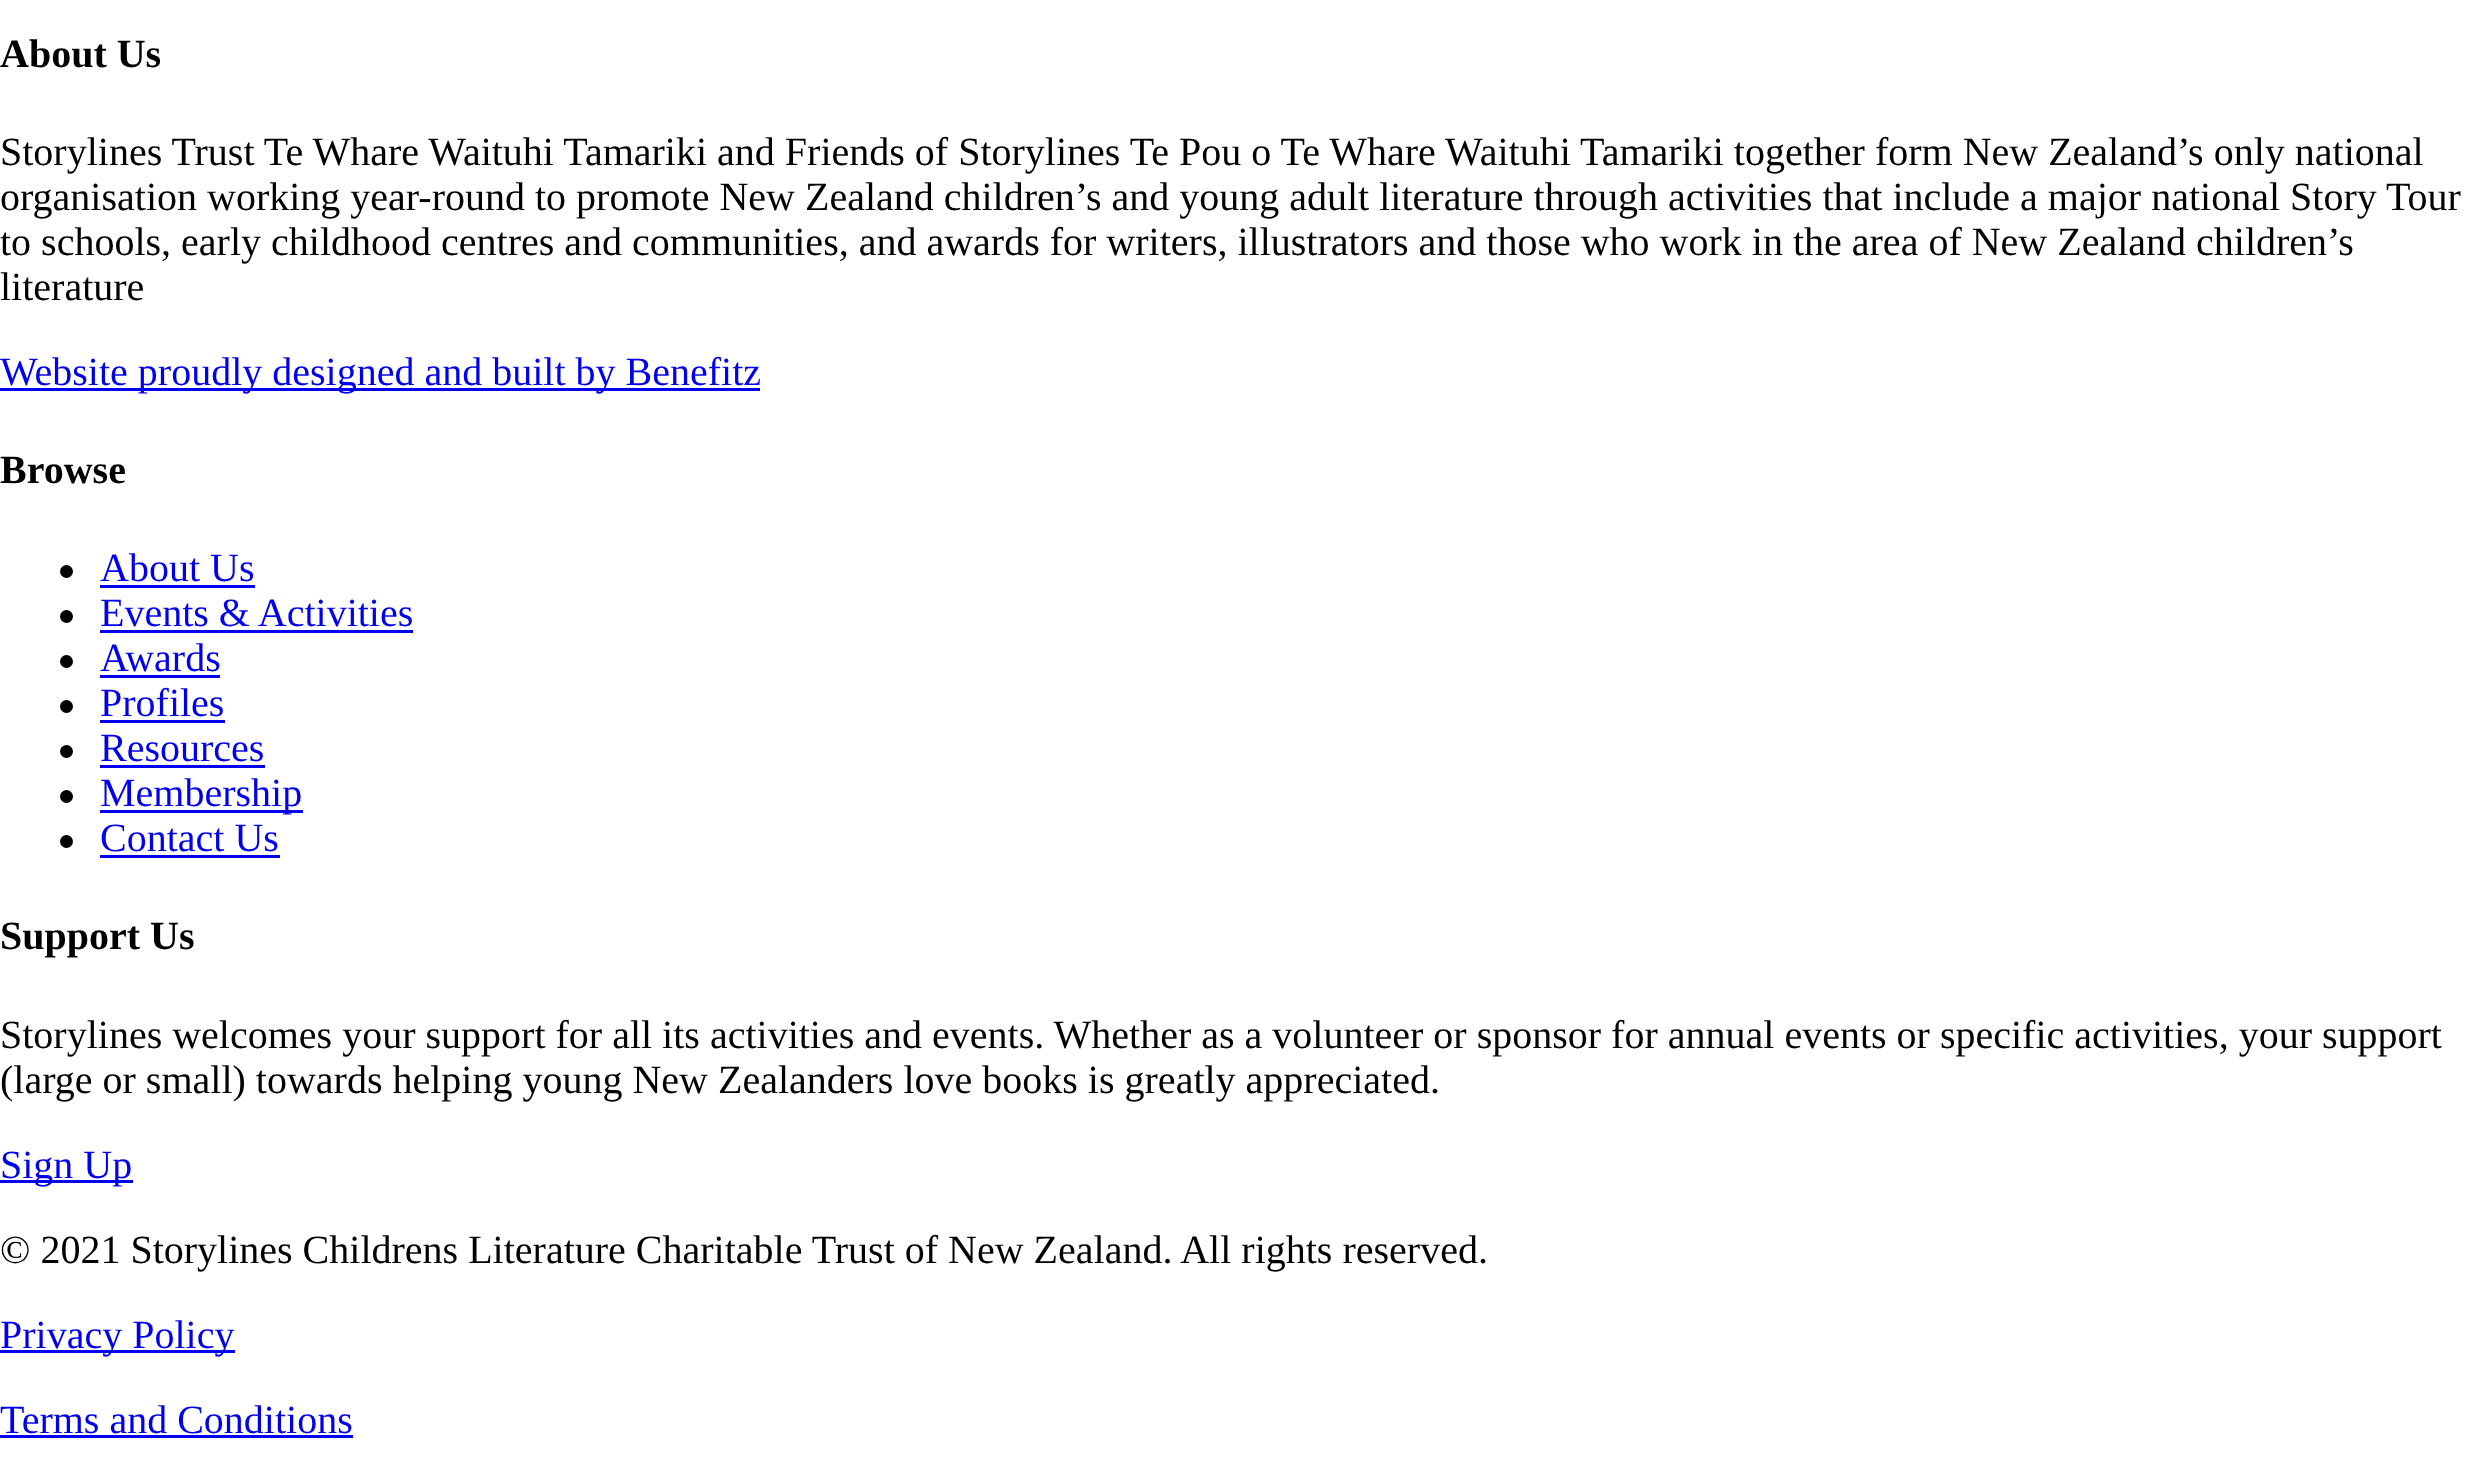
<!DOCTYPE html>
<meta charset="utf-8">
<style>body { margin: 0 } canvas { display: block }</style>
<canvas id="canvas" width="2477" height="1481"></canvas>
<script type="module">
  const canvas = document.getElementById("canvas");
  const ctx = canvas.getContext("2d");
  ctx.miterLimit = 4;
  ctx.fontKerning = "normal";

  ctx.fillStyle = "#ffffff";
  ctx.fillRect(0, 0, 2477, 1481);
  ctx.font = "bold 40px Liberation Serif";
  ctx.fillStyle = "#000000";
  ctx.fillText("About Us", 0, 67);
  ctx.font = "40px Liberation Serif";
  ctx.fillText("Storylines Trust Te Whare Waituhi Tamariki and Friends of Storylines Te Pou o Te Whare Waituhi Tamariki together form New Zealand’s only national", 0, 165);
  ctx.fillText("organisation working year-round to promote New Zealand children’s and young adult literature through activities that include a major national Story Tour", 0, 210);
  ctx.fillText("to schools, early childhood centres and communities, and awards for writers, illustrators and those who work in the area of New Zealand children’s", 0, 255);
  ctx.fillText("literature", 0, 300);
  ctx.fillStyle = "#0000ee";
  ctx.fillRect(0, 388, 760, 3);
  ctx.fillText("Website proudly designed and built by Benefitz", 0, 385);
  ctx.font = "bold 40px Liberation Serif";
  ctx.fillStyle = "#000000";
  ctx.fillText("Browse", 0, 483);
  ctx.beginPath();
  ctx.arc(66.5, 571.5, 6.5, 0, Math.PI * 2);
  ctx.fill();
  ctx.font = "40px Liberation Serif";
  ctx.fillStyle = "#0000ee";
  ctx.fillText("About Us", 100, 581);
  ctx.fillRect(100, 585, 155, 3);
  ctx.fillStyle = "#000000";
  ctx.beginPath();
  ctx.arc(66.5, 616.5, 6.5, 0, Math.PI * 2);
  ctx.fill();
  ctx.fillStyle = "#0000ee";
  ctx.fillText("Events & Activities", 100, 626);
  ctx.fillRect(100, 630, 313, 3);
  ctx.fillStyle = "#000000";
  ctx.beginPath();
  ctx.arc(66.5, 661.5, 6.5, 0, Math.PI * 2);
  ctx.fill();
  ctx.fillStyle = "#0000ee";
  ctx.fillText("Awards", 100, 671);
  ctx.fillRect(100, 675, 120, 3);
  ctx.fillStyle = "#000000";
  ctx.beginPath();
  ctx.arc(66.5, 706.5, 6.5, 0, Math.PI * 2);
  ctx.fill();
  ctx.fillStyle = "#0000ee";
  ctx.fillText("Profiles", 100, 716);
  ctx.fillRect(100, 720, 125, 3);
  ctx.fillStyle = "#000000";
  ctx.beginPath();
  ctx.arc(66.5, 751.5, 6.5, 0, Math.PI * 2);
  ctx.fill();
  ctx.fillStyle = "#0000ee";
  ctx.fillText("Resources", 100, 761);
  ctx.fillRect(100, 765, 165, 3);
  ctx.fillStyle = "#000000";
  ctx.beginPath();
  ctx.arc(66.5, 796.5, 6.5, 0, Math.PI * 2);
  ctx.fill();
  ctx.fillStyle = "#0000ee";
  ctx.fillRect(100, 810, 203, 3);
  ctx.fillText("Membership", 100, 806);
  ctx.fillStyle = "#000000";
  ctx.beginPath();
  ctx.arc(66.5, 841.5, 6.5, 0, Math.PI * 2);
  ctx.fill();
  ctx.fillStyle = "#0000ee";
  ctx.fillText("Contact Us", 100, 851);
  ctx.fillRect(100, 855, 180, 3);
  ctx.font = "bold 40px Liberation Serif";
  ctx.fillStyle = "#000000";
  ctx.fillText("Support Us", 0, 949);
  ctx.font = "40px Liberation Serif";
  ctx.fillText("Storylines welcomes your support for all its activities and events. Whether as a volunteer or sponsor for annual events or specific activities, your support", 0, 1048);
  ctx.fillText("(large or small) towards helping young New Zealanders love books is greatly appreciated.", 0, 1093);
  ctx.fillStyle = "#0000ee";
  ctx.fillRect(0, 1180, 133, 3);
  ctx.fillText("Sign Up", 0, 1178);
  ctx.fillStyle = "#000000";
  ctx.fillText("© 2021 Storylines Childrens Literature Charitable Trust of New Zealand. All rights reserved.", 0, 1263);
  ctx.fillStyle = "#0000ee";
  ctx.fillRect(0, 1350, 235, 3);
  ctx.fillText("Privacy Policy", 0, 1348);
  ctx.fillText("Terms and Conditions", 0, 1433);
  ctx.fillRect(0, 1435, 353, 3);
</script>
